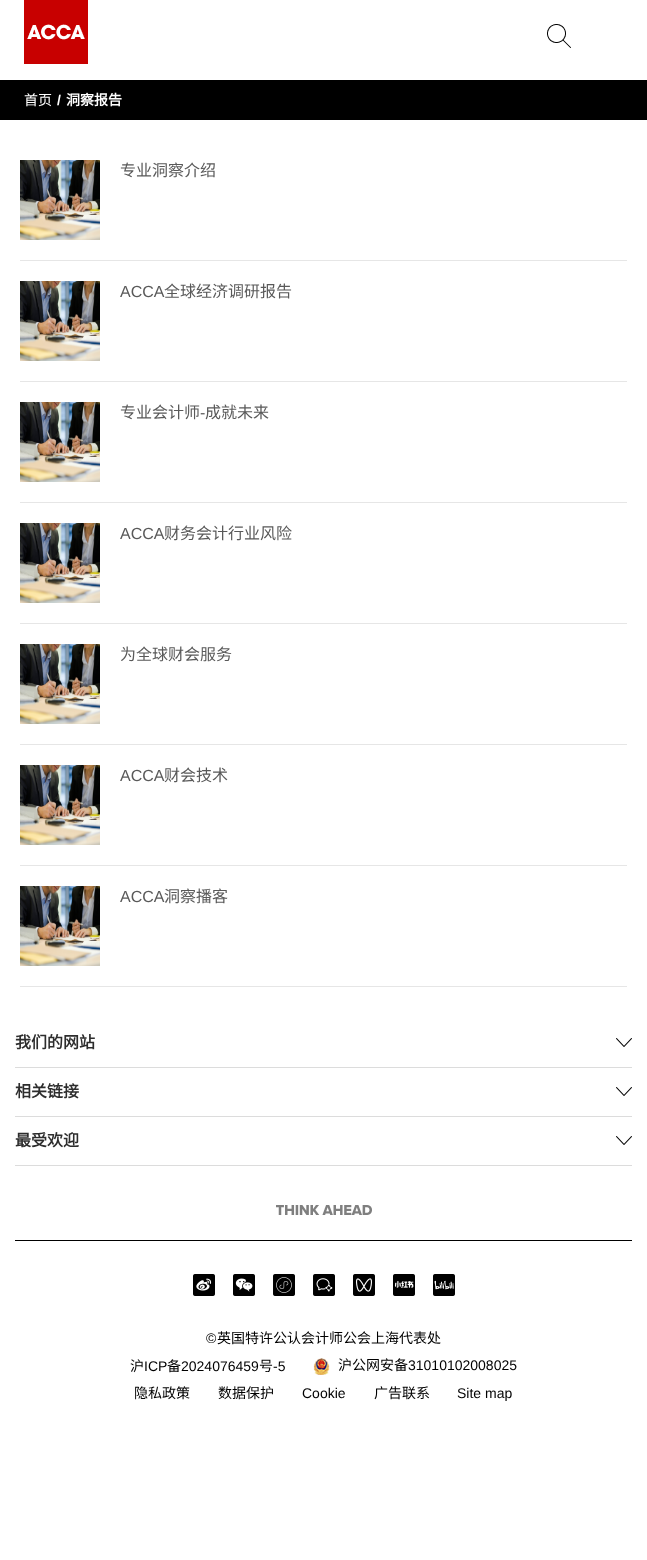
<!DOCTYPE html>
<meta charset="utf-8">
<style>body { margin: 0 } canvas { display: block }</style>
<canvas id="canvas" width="647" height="1560"></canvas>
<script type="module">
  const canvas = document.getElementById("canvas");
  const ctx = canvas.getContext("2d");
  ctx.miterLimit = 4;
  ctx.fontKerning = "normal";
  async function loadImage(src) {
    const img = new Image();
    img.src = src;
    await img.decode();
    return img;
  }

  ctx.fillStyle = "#ffffff";
  ctx.fillRect(0, 0, 647, 1560);
  ctx.drawImage(await loadImage("img1.png"), 24, 0, 64, 64);
  ctx.drawImage(await loadImage("img2.png"), 547, 24, 24, 24);
  ctx.fillStyle = "#000000";
  ctx.fillRect(0, 80, 647, 40);
  ctx.font = "14px Noto Sans CJK SC";
  ctx.fillStyle = "#ffffff";
  ctx.fillText("首页", 24, 105);
  ctx.font = "bold 14px Liberation Sans";
  ctx.fillText("/", 57, 105);
  ctx.font = "bold 14px Noto Sans CJK SC";
  ctx.fillText("洞察报告", 66, 105);
  ctx.fillStyle = "#e6e6e6";
  ctx.fillRect(20, 260, 607, 1);
  ctx.drawImage(await loadImage("img3.png"), 20, 160, 80, 80);
  ctx.font = "16px Noto Sans CJK SC";
  ctx.fillStyle = "#595959";
  ctx.fillText("专业洞察介绍", 120, 176);
  ctx.fillStyle = "#e6e6e6";
  ctx.fillRect(20, 381, 607, 1);
  ctx.drawImage(await loadImage("img4.png"), 20, 281, 80, 80);
  ctx.font = "16px Liberation Sans";
  ctx.fillStyle = "#595959";
  ctx.fillText("ACCA", 120, 297);
  ctx.font = "16px Noto Sans CJK SC";
  ctx.fillText("全球经济调研报告", 164, 297);
  ctx.fillStyle = "#e6e6e6";
  ctx.fillRect(20, 502, 607, 1);
  ctx.drawImage(await loadImage("img3.png"), 20, 402, 80, 80);
  ctx.fillStyle = "#595959";
  ctx.fillText("专业会计师", 120, 418);
  ctx.font = "16px Liberation Sans";
  ctx.fillText("-", 200, 418);
  ctx.font = "16px Noto Sans CJK SC";
  ctx.fillText("成就未来", 205, 418);
  ctx.fillStyle = "#e6e6e6";
  ctx.fillRect(20, 623, 607, 1);
  ctx.drawImage(await loadImage("img5.png"), 20, 523, 80, 80);
  ctx.font = "16px Liberation Sans";
  ctx.fillStyle = "#595959";
  ctx.fillText("ACCA", 120, 539);
  ctx.font = "16px Noto Sans CJK SC";
  ctx.fillText("财务会计行业风险", 164, 539);
  ctx.fillStyle = "#e6e6e6";
  ctx.fillRect(20, 744, 607, 1);
  ctx.drawImage(await loadImage("img6.png"), 20, 644, 80, 80);
  ctx.fillStyle = "#595959";
  ctx.fillText("为全球财会服务", 120, 660);
  ctx.fillStyle = "#e6e6e6";
  ctx.fillRect(20, 865, 607, 1);
  ctx.drawImage(await loadImage("img7.png"), 20, 765, 80, 80);
  ctx.font = "16px Liberation Sans";
  ctx.fillStyle = "#595959";
  ctx.fillText("ACCA", 120, 781);
  ctx.font = "16px Noto Sans CJK SC";
  ctx.fillText("财会技术", 164, 781);
  ctx.fillStyle = "#e6e6e6";
  ctx.fillRect(20, 986, 607, 1);
  ctx.drawImage(await loadImage("img3.png"), 20, 886, 80, 80);
  ctx.font = "16px Liberation Sans";
  ctx.fillStyle = "#595959";
  ctx.fillText("ACCA", 120, 902);
  ctx.font = "16px Noto Sans CJK SC";
  ctx.fillText("洞察播客", 164, 902);
  ctx.fillStyle = "#dcdcdc";
  ctx.fillRect(15, 1067, 617, 1);
  ctx.font = "bold 16px Noto Sans CJK SC";
  ctx.fillStyle = "#2d2d2d";
  ctx.fillText("我们的网站", 15, 1048);
  ctx.drawImage(await loadImage("img8.png"), 616, 1038, 16, 9);
  ctx.fillStyle = "#dcdcdc";
  ctx.fillRect(15, 1116, 617, 1);
  ctx.fillStyle = "#2d2d2d";
  ctx.fillText("相关链接", 15, 1097);
  ctx.drawImage(await loadImage("img8.png"), 616, 1087, 16, 9);
  ctx.fillStyle = "#dcdcdc";
  ctx.fillRect(15, 1165, 617, 1);
  ctx.fillStyle = "#2d2d2d";
  ctx.fillText("最受欢迎", 15, 1146);
  ctx.drawImage(await loadImage("img8.png"), 616, 1136, 16, 9);
  ctx.drawImage(await loadImage("img9.png"), 276, 1205, 96, 10);
  ctx.fillStyle = "#000000";
  ctx.fillRect(15, 1240, 617, 1);
  ctx.drawImage(await loadImage("img10.png"), 193, 1274, 22, 22);
  ctx.drawImage(await loadImage("img11.png"), 233, 1274, 22, 22);
  ctx.drawImage(await loadImage("img12.png"), 273, 1274, 22, 22);
  ctx.drawImage(await loadImage("img13.png"), 313, 1274, 22, 22);
  ctx.drawImage(await loadImage("img14.png"), 353, 1274, 22, 22);
  ctx.drawImage(await loadImage("img15.png"), 393, 1274, 22, 22);
  ctx.drawImage(await loadImage("img16.png"), 433, 1274, 22, 22);
  ctx.font = "14px Liberation Sans";
  ctx.fillText("©", 206, 1343);
  ctx.font = "14px Noto Sans CJK SC";
  ctx.fillText("英国特许公认会计师公会上海代表处", 217, 1343);
  ctx.fillText("沪", 130, 1371);
  ctx.font = "14px Liberation Sans";
  ctx.fillText("ICP", 144, 1371);
  ctx.font = "14px Noto Sans CJK SC";
  ctx.fillText("备", 167, 1371);
  ctx.font = "14px Liberation Sans";
  ctx.fillText("2024076459", 181, 1371);
  ctx.font = "14px Noto Sans CJK SC";
  ctx.fillText("号", 259, 1371);
  ctx.font = "14px Liberation Sans";
  ctx.fillText("-5", 273, 1371);
  ctx.drawImage(await loadImage("img17.png"), 313, 1358, 17, 17);
  ctx.font = "14px Noto Sans CJK SC";
  ctx.fillText("沪公网安备", 338, 1370);
  ctx.font = "14px Liberation Sans";
  ctx.fillText("31010102008025", 408, 1370);
  ctx.font = "14px Noto Sans CJK SC";
  ctx.fillText("隐私政策", 134, 1398);
  ctx.fillText("数据保护", 218, 1398);
  ctx.font = "14px Liberation Sans";
  ctx.fillText("Cookie", 302, 1398);
  ctx.font = "14px Noto Sans CJK SC";
  ctx.fillText("广告联系", 374, 1398);
  ctx.font = "14px Liberation Sans";
  ctx.fillText("Site map", 457, 1398);
</script>
